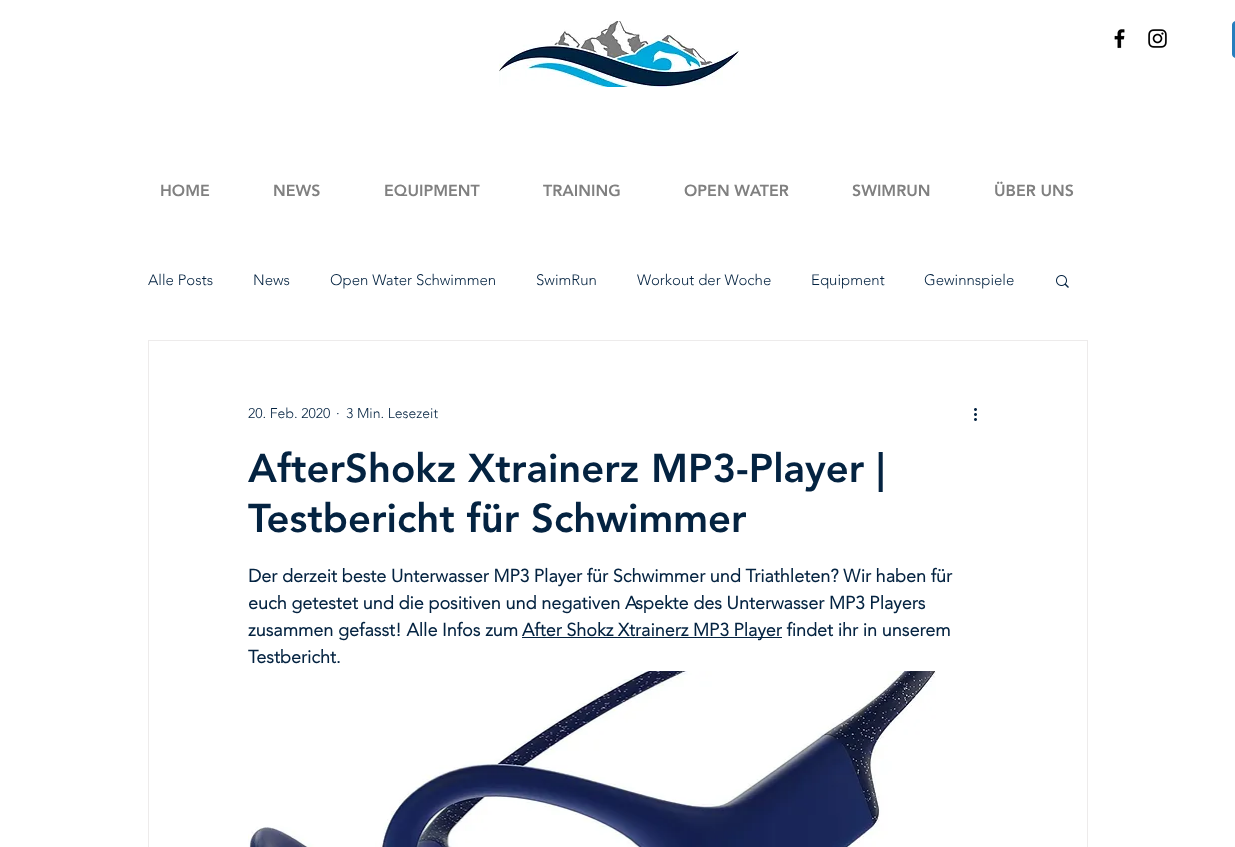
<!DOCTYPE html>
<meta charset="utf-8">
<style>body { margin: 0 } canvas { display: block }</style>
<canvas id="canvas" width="1235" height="847"></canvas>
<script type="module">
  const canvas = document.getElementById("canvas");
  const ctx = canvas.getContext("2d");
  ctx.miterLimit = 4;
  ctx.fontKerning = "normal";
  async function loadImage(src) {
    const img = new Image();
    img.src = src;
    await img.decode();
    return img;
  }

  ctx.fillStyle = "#ffffff";
  ctx.fillRect(0, 0, 1235, 847);
  ctx.drawImage(await loadImage("img1.png"), 499, 21, 240, 66);
  ctx.drawImage(await loadImage("img2.png"), 1114, 29, 11, 20);
  ctx.drawImage(await loadImage("img3.png"), 1148, 29, 19, 19);
  ctx.drawImage(await loadImage("img4.png"), 1232, 21, 3, 37);
  ctx.font = "900 16px 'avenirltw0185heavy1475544'";
  ctx.fillStyle = "#808080";
  ctx.fillText("HOME", 160, 196);
  ctx.fillText("NEWS", 273, 196);
  ctx.fillText("EQUIPMENT", 384, 196);
  ctx.fillText("TRAINING", 543, 196);
  ctx.fillText("OPEN WATER", 684, 196);
  ctx.fillText("SWIMRUN", 852, 196);
  ctx.fillText("ÜBER UNS", 994, 196);
  ctx.font = "300 15px 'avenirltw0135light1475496'";
  ctx.fillStyle = "#042341";
  ctx.fillText("Alle Posts", 148, 285);
  ctx.fillText("News", 253, 285);
  ctx.fillText("Open Water Schwimmen", 330, 285);
  ctx.fillText("SwimRun", 536, 285);
  ctx.fillText("Workout der Woche", 637, 285);
  ctx.fillText("Equipment", 811, 285);
  ctx.fillText("Gewinnspiele", 924, 285);
  ctx.drawImage(await loadImage("img5.png"), 1056, 275, 13, 13);
  ctx.strokeStyle = "#edebeb";
  ctx.strokeRect(148.5, 340.5, 939, 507);
  ctx.font = "300 14px 'avenirltw0135light1475496'";
  ctx.fillText("20. Feb. 2020", 248, 418);
  ctx.fillText("·", 336, 418);
  ctx.fillText("3 Min. Lesezeit", 346, 418);
  ctx.drawImage(await loadImage("img6.png"), 974, 408, 3, 13);
  ctx.font = "900 40px 'avenirltw0185heavy1475544'";
  ctx.fillText("AfterShokz Xtrainerz MP3-Player |", 248, 482);
  ctx.fillText("Testbericht für Schwimmer", 248, 532);
  ctx.font = "bold 18px 'avenirltw0135light1475496'";
  ctx.fillText("Der derzeit beste Unterwasser MP3 Player für Schwimmer und Triathleten? Wir haben für", 248, 582);
  ctx.fillText("euch getestet und die positiven und negativen Aspekte des Unterwasser MP3 Players", 248, 609);
  ctx.fillText("zusammen gefasst! Alle Infos zum", 248, 636);
  ctx.fillRect(522, 637, 260, 1);
  ctx.fillText("After Shokz Xtrainerz MP3 Player findet ihr in unserem", 522, 636);
  ctx.fillText("Testbericht.", 248, 663);
  ctx.drawImage(await loadImage("img7.png"), 248, 671, 688, 176);
</script>
